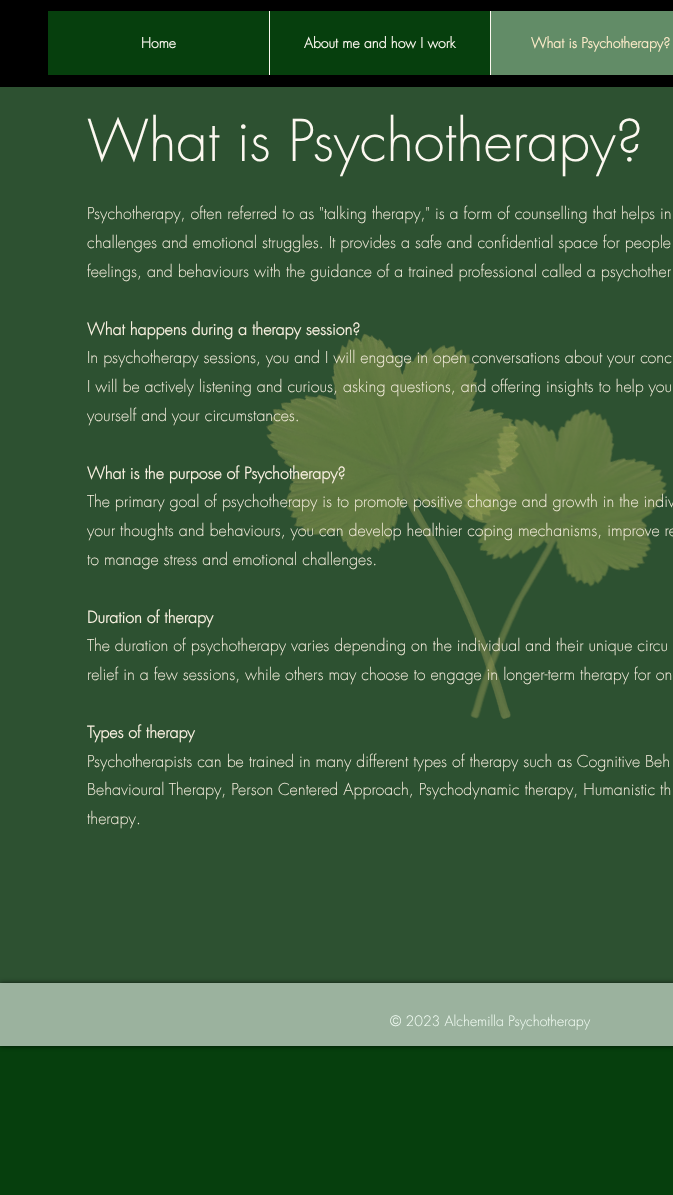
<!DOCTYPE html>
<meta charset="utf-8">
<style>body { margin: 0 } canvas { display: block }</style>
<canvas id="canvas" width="673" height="1195"></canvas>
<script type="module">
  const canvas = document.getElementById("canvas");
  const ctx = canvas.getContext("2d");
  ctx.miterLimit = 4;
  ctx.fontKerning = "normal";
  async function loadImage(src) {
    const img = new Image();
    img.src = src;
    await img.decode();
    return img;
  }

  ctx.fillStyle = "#063f0d";
  ctx.fillRect(0, 0, 673, 1195);
  ctx.fillStyle = "#000000";
  ctx.fillRect(0, 0, 673, 87);
  ctx.fillStyle = "#063f0d";
  ctx.fillRect(48, 11, 442, 64);
  ctx.font = "bold 14px futura";
  ctx.fillStyle = "#fcf8f0";
  ctx.fillText("Home", 141, 48);
  ctx.fillRect(269, 11, 1, 64);
  ctx.fillText("About me and how I work", 304, 48);
  ctx.fillStyle = "#628c67";
  ctx.fillRect(491, 11, 182, 64);
  ctx.fillStyle = "#fcf8f0";
  ctx.fillRect(490, 11, 1, 64);
  ctx.fillStyle = "#fdebc9";
  ctx.fillText("What is Psychotherapy?", 531, 48);
  ctx.fillStyle = "#2d5131";
  ctx.fillRect(0, 87, 673, 896);
  ctx.drawImage(await loadImage("img1.png"), 266, 333, 401, 386);
  ctx.font = "300 56px futura";
  ctx.fillStyle = "#fcf8f0";
  ctx.fillText("What is Psychotherapy?", 87, 161);
  ctx.font = "300 16px futura";
  ctx.fillStyle = "#f7efdf";
  ctx.fillText("Psychotherapy, often referred to as \"talking therapy,\" is a form of counselling that helps in", 87, 219);
  ctx.fillText("challenges and emotional struggles. It provides a safe and confidential space for people", 87, 248);
  ctx.fillText("feelings, and behaviours with the guidance of a trained professional called a psychother", 87, 277);
  ctx.font = "bold 16px futura";
  ctx.fillText("What happens during a therapy session?", 87, 335);
  ctx.font = "300 16px futura";
  ctx.fillText("In psychotherapy sessions, you and I will engage in open conversations about your conc", 87, 363);
  ctx.fillText("I will be actively listening and curious, asking questions, and offering insights to help you", 87, 392);
  ctx.fillText("yourself and your circumstances.", 87, 421);
  ctx.font = "bold 16px futura";
  ctx.fillText("What is the purpose of Psychotherapy?", 87, 479);
  ctx.font = "300 16px futura";
  ctx.fillText("The primary goal of psychotherapy is to promote positive change and growth in the indiv", 87, 507);
  ctx.fillText("your thoughts and behaviours, you can develop healthier coping mechanisms, improve re", 87, 536);
  ctx.fillText("to manage stress and emotional challenges.", 87, 565);
  ctx.font = "bold 16px futura";
  ctx.fillText("Duration of therapy", 87, 623);
  ctx.font = "300 16px futura";
  ctx.fillText("The duration of psychotherapy varies depending on the individual and their unique circu", 87, 651);
  ctx.fillText("relief in a few sessions, while others may choose to engage in longer-term therapy for on", 87, 680);
  ctx.font = "bold 16px futura";
  ctx.fillText("Types of therapy", 87, 738);
  ctx.font = "300 16px futura";
  ctx.fillText("Psychotherapists can be trained in many different types of therapy such as Cognitive Beh", 87, 767);
  ctx.fillText("Behavioural Therapy, Person Centered Approach, Psychodynamic therapy, Humanistic th", 87, 795);
  ctx.fillText("therapy.", 87, 824);
  ctx.fillStyle = "rgba(0, 0, 0, 0.7)";
  ctx.filter = "blur(2.5px)";
  ctx.beginPath();
  ctx.rect(0, 983, 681, 63);
  ctx.fill();
  ctx.filter = "none";
  ctx.fillStyle = "#9bb29e";
  ctx.fillRect(0, 983, 673, 63);
  ctx.font = "300 14px futura";
  ctx.fillStyle = "#f5fff7";
  ctx.fillText("© 2023 Alchemilla Psychotherapy", 390, 1026);
</script>
